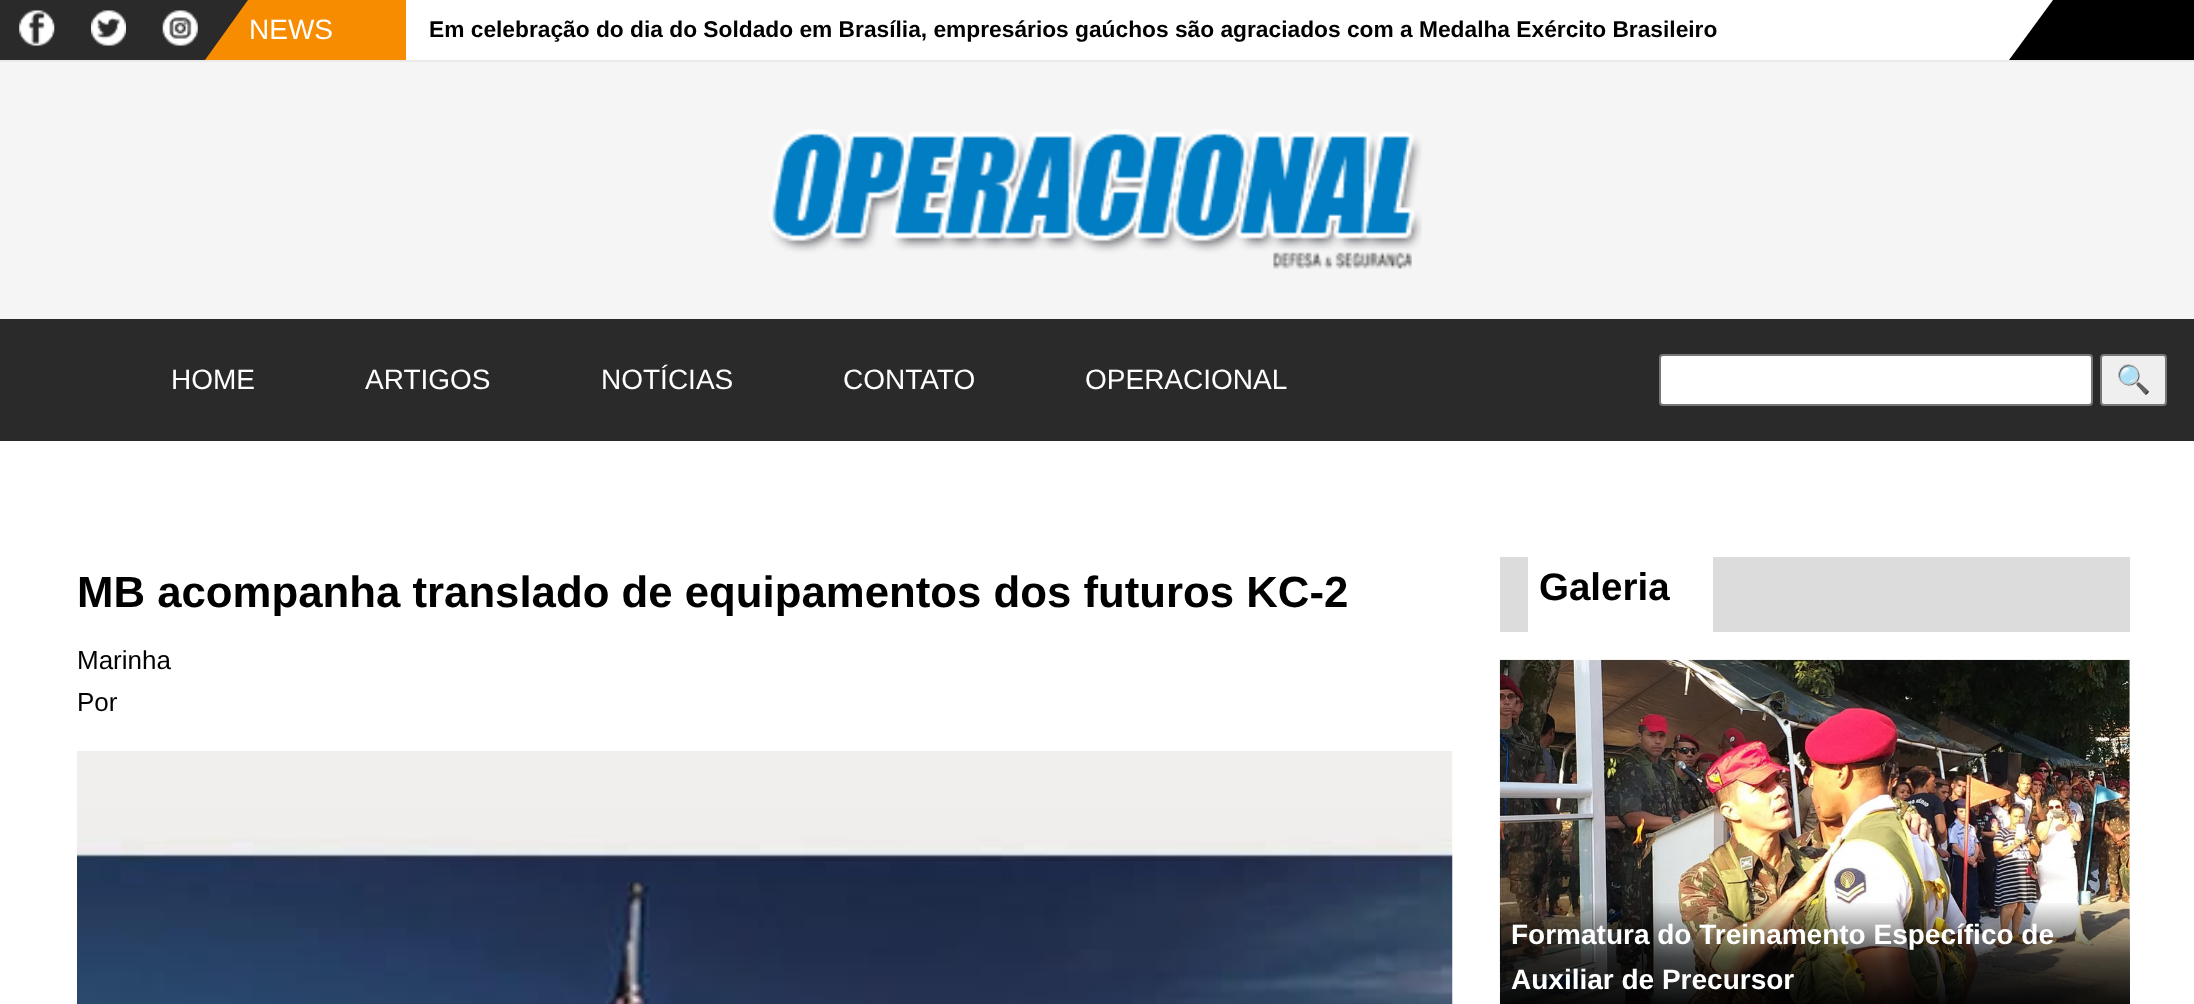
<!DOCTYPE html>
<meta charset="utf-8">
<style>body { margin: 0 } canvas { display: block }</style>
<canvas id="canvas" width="2194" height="1004"></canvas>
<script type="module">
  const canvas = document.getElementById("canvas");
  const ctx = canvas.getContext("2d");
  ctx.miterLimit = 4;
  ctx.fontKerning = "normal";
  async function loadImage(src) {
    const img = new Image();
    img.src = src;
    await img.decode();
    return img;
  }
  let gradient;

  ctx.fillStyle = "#ffffff";
  ctx.fillRect(0, 0, 2194, 1004);
  ctx.fillStyle = "#f5f5f5";
  ctx.fillRect(0, 62, 2194, 257);
  ctx.fillStyle = "#eaeaea";
  ctx.fillRect(0, 60, 2194, 2);
  ctx.fillStyle = "#f88c00";
  ctx.fillRect(205, 0, 201, 60);
  ctx.fillStyle = "#2a2a2a";
  ctx.beginPath();
  ctx.moveTo(0, 0);
  ctx.lineTo(248, 0);
  ctx.lineTo(205, 60);
  ctx.lineTo(0, 60);
  ctx.closePath();
  ctx.fill();
  ctx.drawImage(await loadImage("img1.png"), 19, 10, 36, 36);
  ctx.drawImage(await loadImage("img2.png"), 91, 10, 35, 36);
  ctx.drawImage(await loadImage("img3.png"), 162, 10, 36, 36);
  ctx.font = "28px Liberation Sans";
  ctx.fillStyle = "#ffffff";
  ctx.fillText("NEWS", 249, 39);
  ctx.font = "bold 22.75px Liberation Sans";
  ctx.fillStyle = "#000000";
  ctx.fillText("Em celebração do dia do Soldado em Brasília, empresários gaúchos são agraciados com a Medalha Exército Brasileiro", 429, 37);
  ctx.beginPath();
  ctx.moveTo(2194, 60);
  ctx.lineTo(2009, 60);
  ctx.lineTo(2053, 0);
  ctx.lineTo(2194, 0);
  ctx.closePath();
  ctx.fill();
  ctx.drawImage(await loadImage("img4.png"), 768, 129, 654, 140);
  ctx.fillStyle = "#2a2a2a";
  ctx.fillRect(0, 319, 2194, 122);
  ctx.font = "28px Liberation Sans";
  ctx.fillStyle = "#ffffff";
  ctx.fillText("HOME", 171, 389);
  ctx.fillText("ARTIGOS", 365, 389);
  ctx.fillText("NOTÍCIAS", 601, 389);
  ctx.fillText("CONTATO", 843, 389);
  ctx.fillText("OPERACIONAL", 1085, 389);
  ctx.beginPath();
  ctx.roundRect(1660, 355, 432, 50, 3);
  ctx.fill();
  ctx.strokeStyle = "#767676";
  ctx.lineWidth = 2;
  ctx.stroke();
  ctx.fillStyle = "#efefef";
  ctx.beginPath();
  ctx.roundRect(2101, 355, 65, 50, 3);
  ctx.fill();
  ctx.stroke();
  ctx.font = "28px Noto Color Emoji";
  ctx.fillStyle = "#000000";
  ctx.fillText("🔍", 2116, 389);
  ctx.font = "bold 43.75px Liberation Sans";
  ctx.fillText("MB acompanha translado de equipamentos dos futuros KC-2", 77, 607);
  ctx.font = "26px Liberation Sans";
  ctx.fillText("Marinha", 77, 669);
  ctx.fillText("Por", 77, 711);
  ctx.drawImage(await loadImage("img5.png"), 77, 751, 1376, 253);
  ctx.fillStyle = "#dcdcdc";
  ctx.fillRect(1500, 557, 630, 75);
  ctx.fillStyle = "#ffffff";
  ctx.fillRect(1528, 557, 185, 75);
  ctx.font = "bold 38.5px Liberation Sans";
  ctx.fillStyle = "#000000";
  ctx.fillText("Galeria", 1539, 600);
  ctx.drawImage(await loadImage("img6.png"), 1499, 659, 631, 345);
  gradient = ctx.createLinearGradient(1815, 901, 1815, 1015);
  gradient.addColorStop(0, "rgba(0, 0, 0, 0)");
  gradient.addColorStop(0.5, "rgba(0, 0, 0, 0.7)");
  gradient.addColorStop(1, "#000000");
  ctx.fillStyle = gradient;
  ctx.fillRect(1500, 903, 630, 101);
  ctx.font = "bold 28px Liberation Sans";
  ctx.fillStyle = "#ffffff";
  ctx.fillText("Formatura do Treinamento Específico de", 1511, 944);
  ctx.fillText("Auxiliar de Precursor", 1511, 989);
</script>
